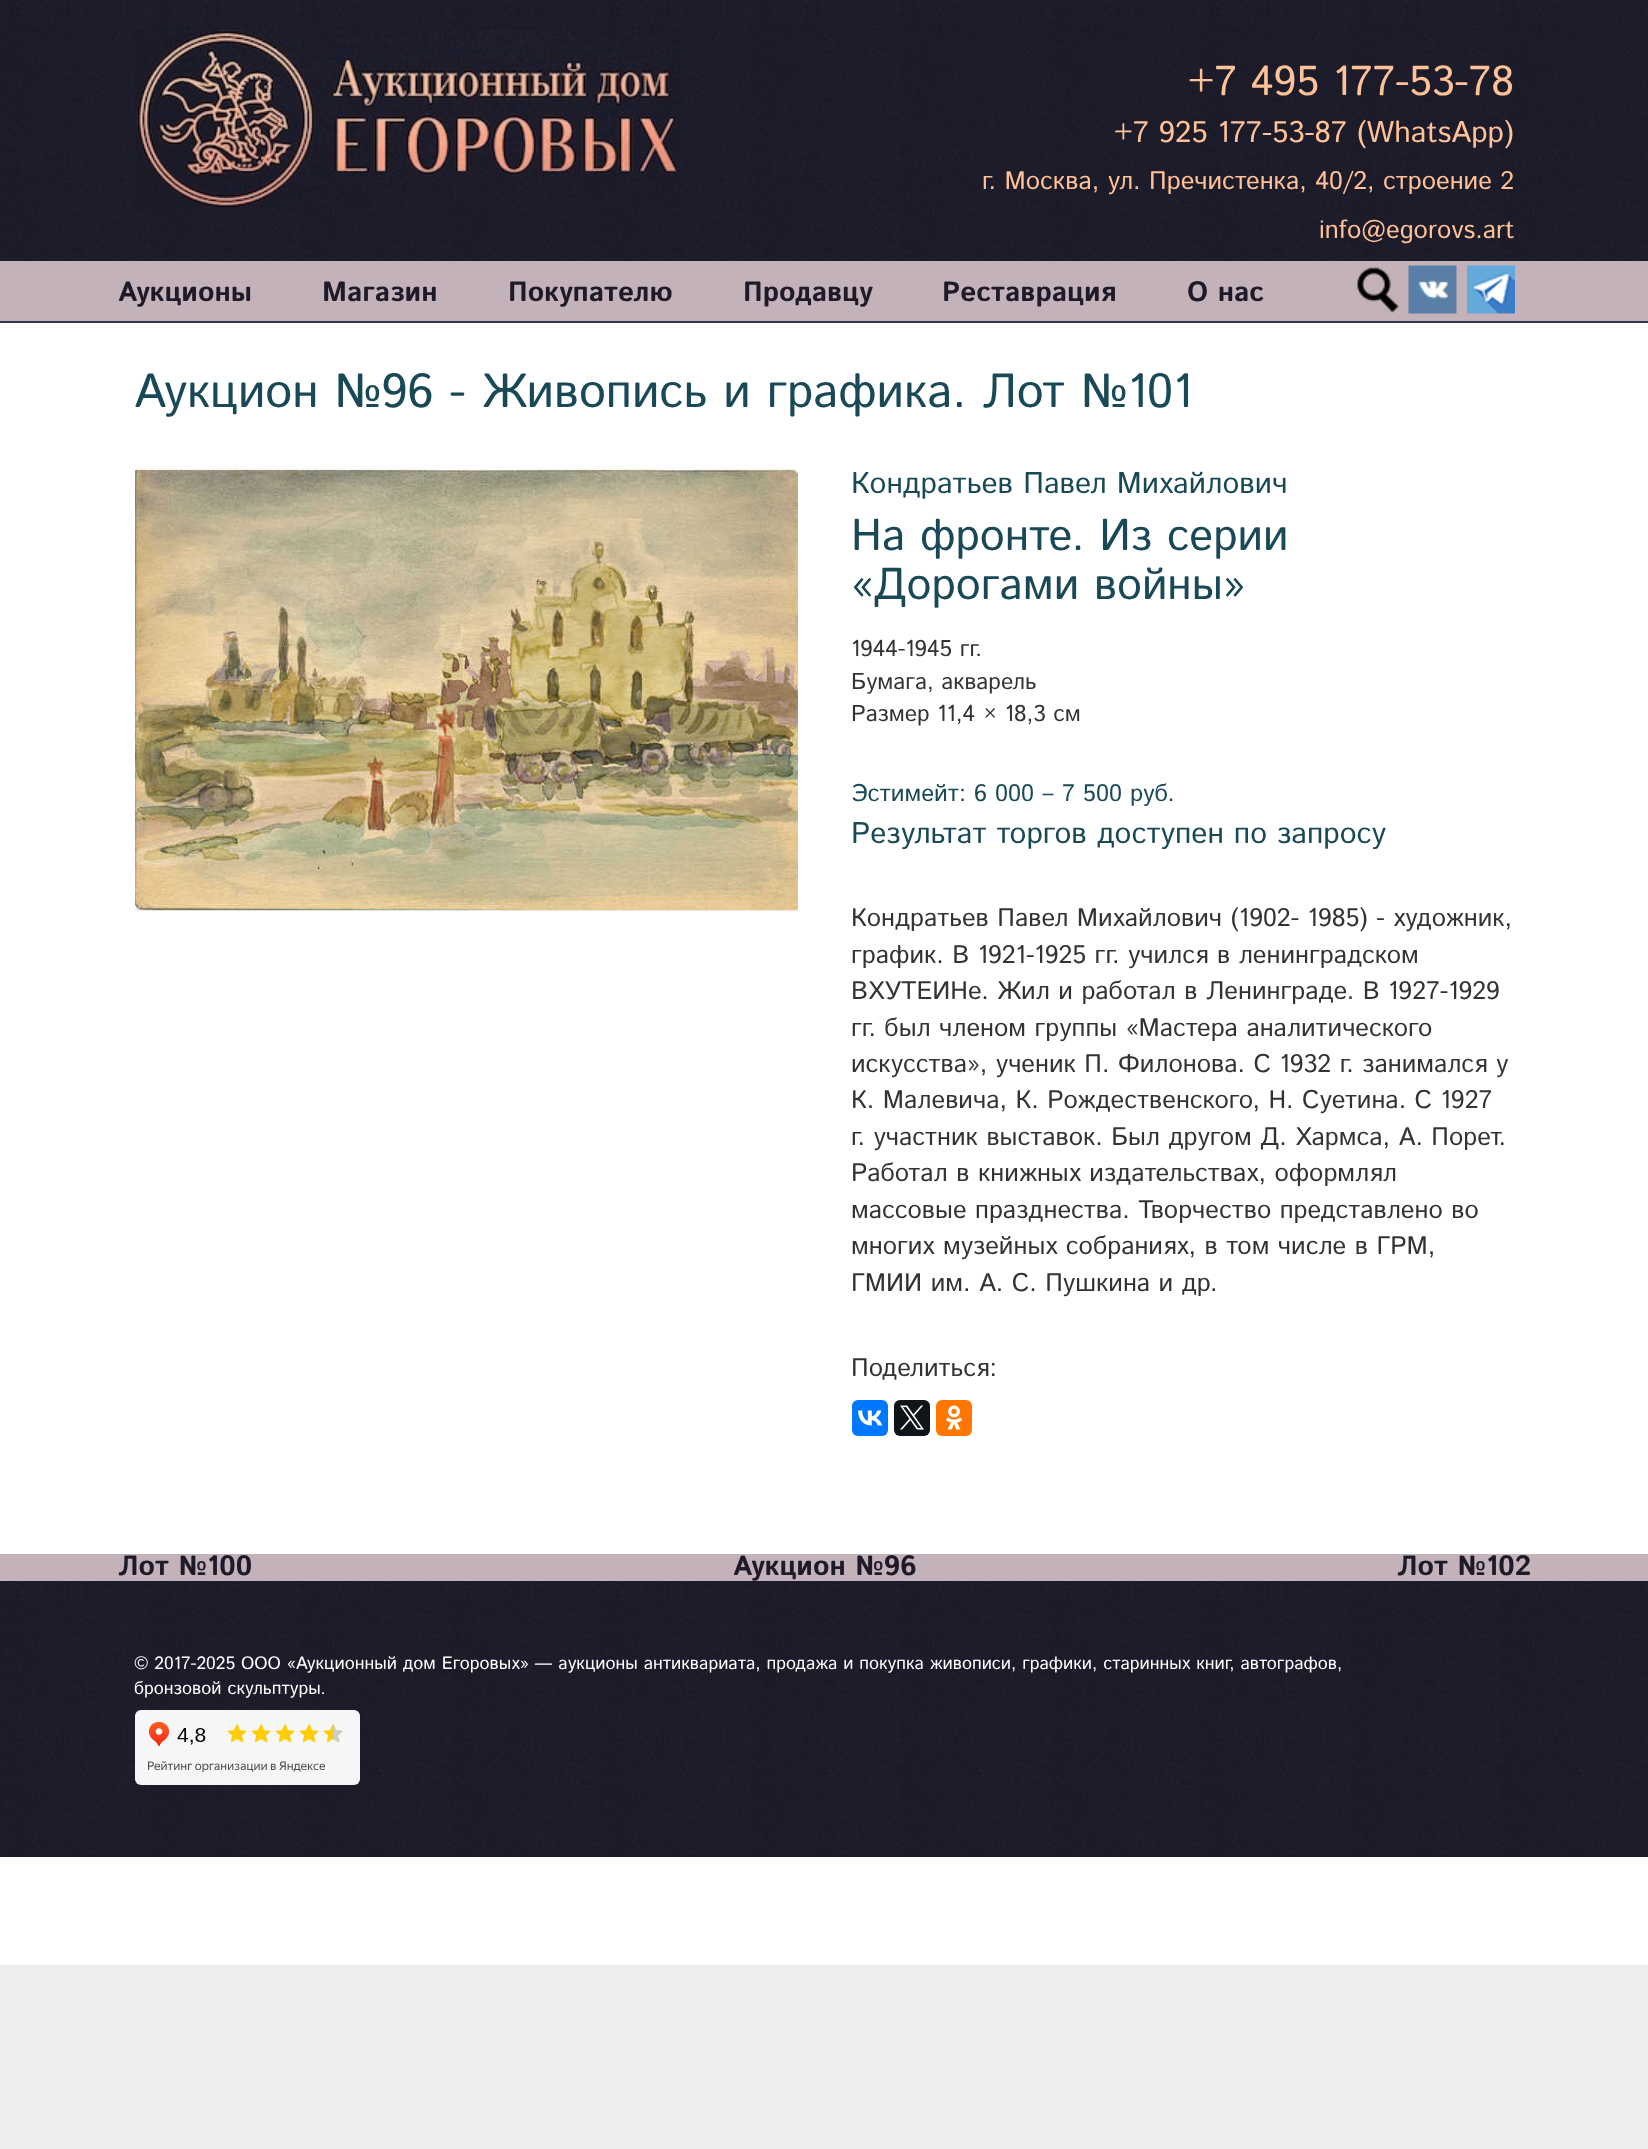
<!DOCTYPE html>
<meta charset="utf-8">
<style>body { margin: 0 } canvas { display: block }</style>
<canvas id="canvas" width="1648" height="2149"></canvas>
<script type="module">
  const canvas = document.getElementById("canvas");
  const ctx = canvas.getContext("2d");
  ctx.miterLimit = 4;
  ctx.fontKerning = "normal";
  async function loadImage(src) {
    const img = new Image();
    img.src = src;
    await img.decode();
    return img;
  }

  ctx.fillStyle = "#eeeeee";
  ctx.fillRect(0, 0, 1648, 2149);
  ctx.drawImage(await loadImage("img1.png"), 0, 0, 1648, 261);
  ctx.drawImage(await loadImage("img2.png"), 135, 30, 545, 177);
  ctx.font = "42px Istok Web";
  ctx.fillStyle = "#ffc197";
  ctx.fillText("+7 495 177-53-78", 1188, 95);
  ctx.font = "30px Istok Web";
  ctx.fillText("+7 925 177-53-87 (WhatsApp)", 1114, 142);
  ctx.font = "25.5px Istok Web";
  ctx.fillText("г. Москва, ул. Пречистенка, 40/2, строение 2", 982, 189);
  ctx.fillText("info@egorovs.art", 1319, 238);
  ctx.fillStyle = "#c4b2ba";
  ctx.fillRect(0, 261, 1648, 60);
  ctx.font = "bold 28px Istok Web";
  ctx.fillStyle = "#1e1a2a";
  ctx.fillText("Аукционы", 118, 301);
  ctx.fillText("Магазин", 322, 301);
  ctx.fillText("Покупателю", 508, 301);
  ctx.fillText("Продавцу", 743, 301);
  ctx.fillText("Реставрация", 942, 301);
  ctx.fillText("О нас", 1187, 301);
  ctx.drawImage(await loadImage("img3.png"), 1357, 266, 42, 47);
  ctx.drawImage(await loadImage("img4.png"), 1408, 265, 49, 49);
  ctx.drawImage(await loadImage("img5.png"), 1467, 265, 48, 49);
  ctx.fillStyle = "#2f3453";
  ctx.fillRect(0, 321, 1648, 2);
  ctx.fillStyle = "#ffffff";
  ctx.fillRect(0, 323, 1648, 1642);
  ctx.font = "48px Istok Web";
  ctx.fillStyle = "#194957";
  ctx.fillText("Аукцион №96 - Живопись и графика. Лот №101", 134, 407);
  ctx.fillStyle = "#eeeeee";
  ctx.fillRect(135, 910, 663, 1);
  ctx.drawImage(await loadImage("img6.png"), 135, 469, 663, 442);
  ctx.font = "30px Istok Web";
  ctx.fillStyle = "#194957";
  ctx.fillText("Кондратьев Павел Михайлович", 851, 493);
  ctx.font = "44.5px Istok Web";
  ctx.fillText("На фронте. Из серии", 851, 550);
  ctx.fillText("«Дорогами войны»", 851, 599);
  ctx.font = "23px Istok Web";
  ctx.fillStyle = "#333333";
  ctx.fillText("1944-1945 гг.", 851, 656);
  ctx.fillText("Бумага, акварель", 851, 689);
  ctx.fillText("Размер 11,4 × 18,3 см", 851, 721);
  ctx.font = "24px Istok Web";
  ctx.fillStyle = "#194957";
  ctx.fillText("Эстимейт: 6 000 – 7 500 руб.", 851, 801);
  ctx.font = "30px Istok Web";
  ctx.fillText("Результат торгов доступен по запросу", 851, 843);
  ctx.font = "25.5px Istok Web";
  ctx.fillStyle = "#333333";
  ctx.fillText("Кондратьев Павел Михайлович (1902- 1985) - художник,", 851, 926);
  ctx.fillText("график. В 1921-1925 гг. учился в ленинградском", 851, 963);
  ctx.fillText("ВХУТЕИНе. Жил и работал в Ленинграде. В 1927-1929", 851, 999);
  ctx.fillText("гг. был членом группы «Мастера аналитического", 851, 1036);
  ctx.fillText("искусства», ученик П. Филонова. С 1932 г. занимался у", 851, 1072);
  ctx.fillText("К. Малевича, К. Рождественского, Н. Суетина. С 1927", 851, 1108);
  ctx.fillText("г. участник выставок. Был другом Д. Хармса, А. Порет.", 851, 1145);
  ctx.fillText("Работал в книжных издательствах, оформлял", 851, 1181);
  ctx.fillText("массовые празднества. Творчество представлено во", 851, 1218);
  ctx.fillText("многих музейных собраниях, в том числе в ГРМ,", 851, 1254);
  ctx.fillText("ГМИИ им. А. С. Пушкина и др.", 851, 1291);
  ctx.fillText("Поделиться:", 851, 1376);
  ctx.fillStyle = "#0077ff";
  ctx.beginPath();
  ctx.roundRect(852, 1400, 36, 36, 6);
  ctx.fill();
  ctx.drawImage(await loadImage("img7.png"), 858, 1410, 24, 16);
  ctx.fillStyle = "#0f1419";
  ctx.beginPath();
  ctx.roundRect(894, 1400, 36, 36, 6);
  ctx.fill();
  ctx.drawImage(await loadImage("img8.png"), 900, 1405, 24, 25);
  ctx.fillStyle = "#ff7700";
  ctx.beginPath();
  ctx.roundRect(936, 1400, 36, 36, 6);
  ctx.fill();
  ctx.drawImage(await loadImage("img9.png"), 946, 1405, 16, 25);
  ctx.fillStyle = "#c4b2ba";
  ctx.fillRect(0, 1554, 1648, 27);
  ctx.font = "bold 28px Istok Web";
  ctx.fillStyle = "#1e1a2a";
  ctx.fillText("Лот №100", 118, 1575);
  ctx.fillText("Аукцион №96", 733, 1575);
  ctx.fillText("Лот №102", 1397, 1575);
  ctx.fillRect(0, 1854, 1648, 3);
  ctx.drawImage(await loadImage("img10.png"), 0, 1581, 1648, 273);
  ctx.font = "17.85px Istok Web";
  ctx.fillStyle = "#ffffff";
  ctx.fillText("© 2017-2025 ООО «Аукционный дом Егоровых» — аукционы антиквариата, продажа и покупка живописи, графики, старинных книг, автографов,", 134, 1669);
  ctx.fillText("бронзовой скульптуры.", 134, 1694);
  ctx.drawImage(await loadImage("img11.png"), 135, 1710, 225, 75);
</script>
